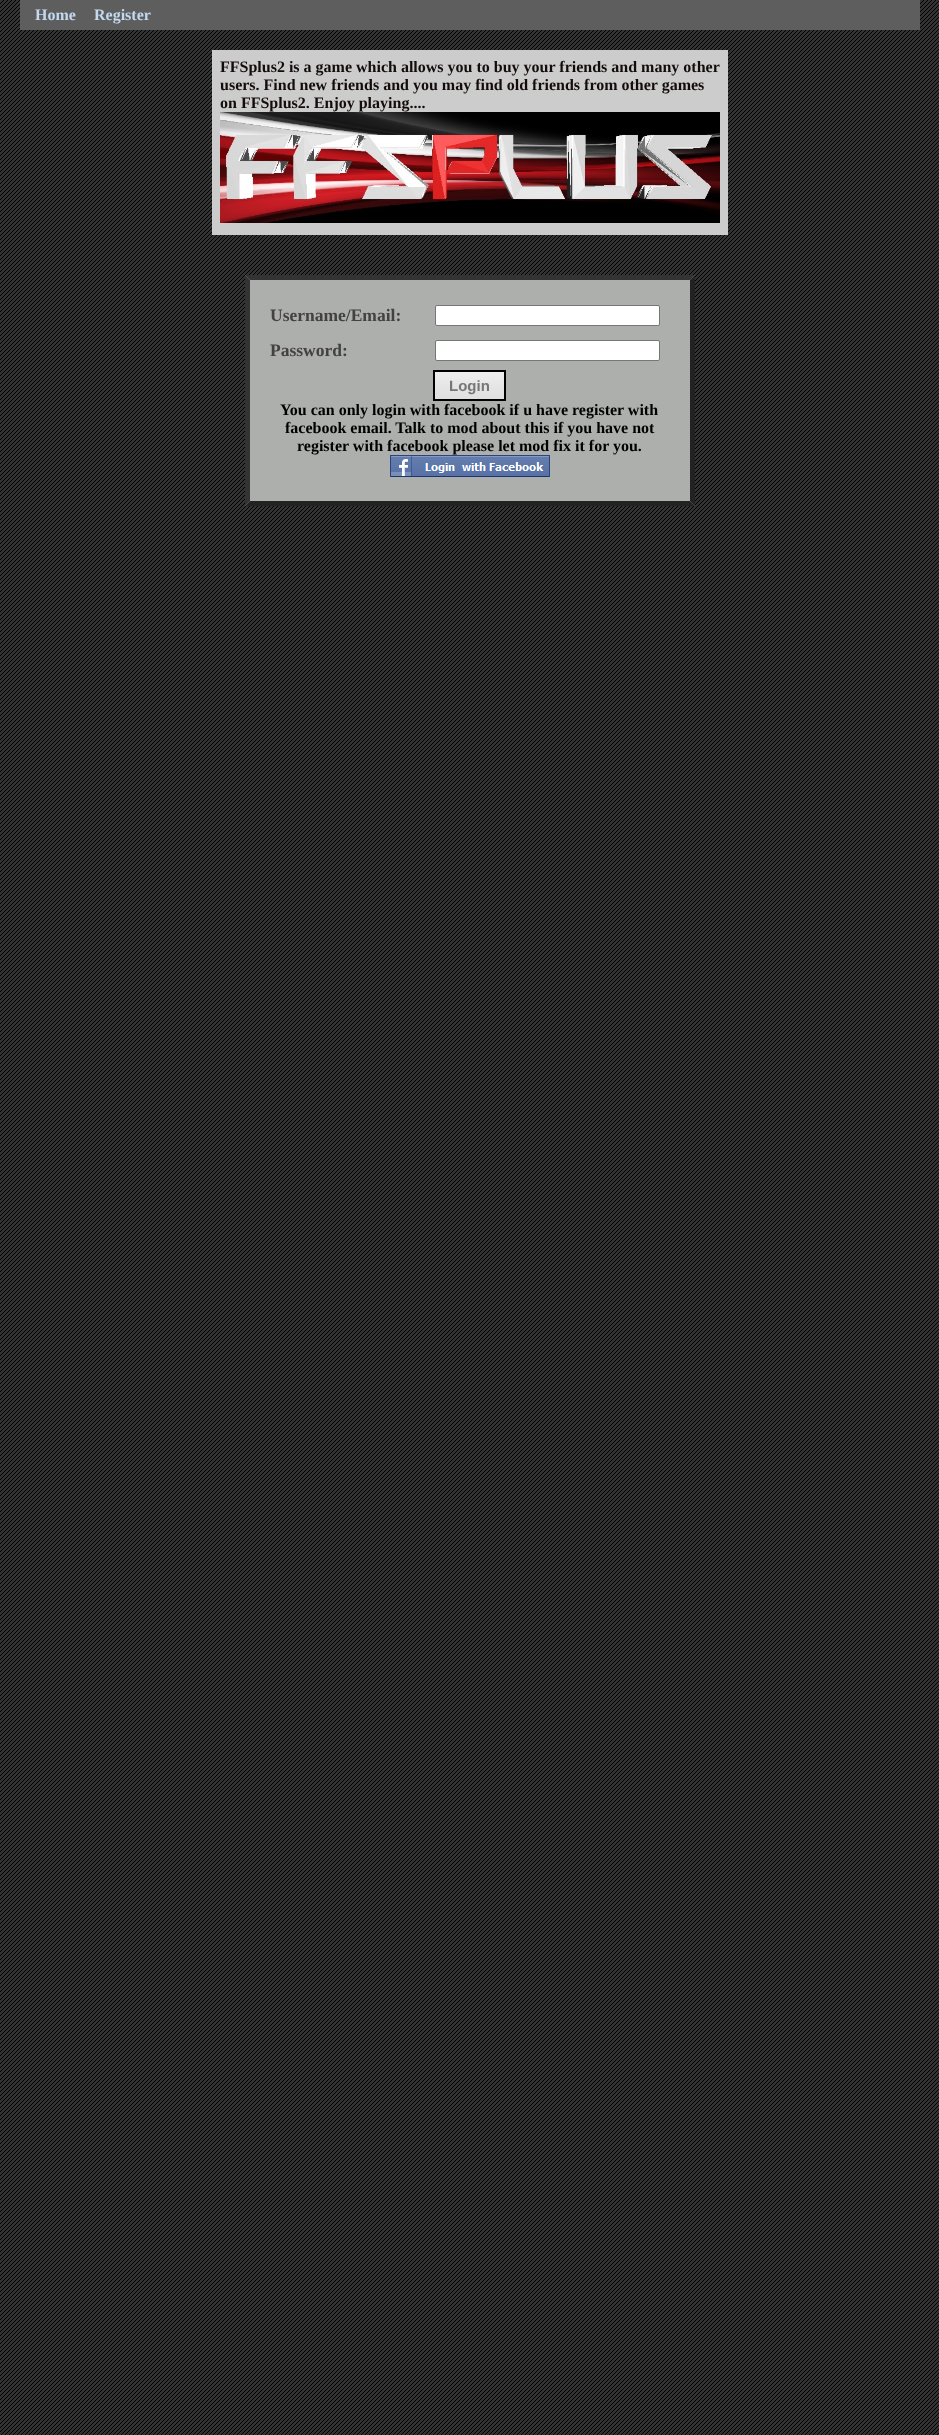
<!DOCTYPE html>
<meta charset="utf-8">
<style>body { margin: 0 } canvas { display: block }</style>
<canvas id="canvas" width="939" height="2435"></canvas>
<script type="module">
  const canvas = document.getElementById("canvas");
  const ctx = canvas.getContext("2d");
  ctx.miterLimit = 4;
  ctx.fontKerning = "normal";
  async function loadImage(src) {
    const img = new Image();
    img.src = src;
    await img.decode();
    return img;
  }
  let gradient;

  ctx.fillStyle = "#ffffff";
  ctx.fillRect(0, 0, 939, 2435);
  ctx.drawImage(await loadImage("img1.png"), 0, 0, 939, 2435);
  ctx.fillStyle = "#5e5e5e";
  ctx.fillRect(20, 0, 900, 30);
  ctx.font = "bold 16px Liberation Serif";
  ctx.fillStyle = "#c2d9ef";
  ctx.fillText("Home", 35, 20);
  ctx.fillText("Register", 94, 20);
  ctx.fillStyle = "#cccccc";
  ctx.fillRect(212, 50, 516, 185);
  ctx.fillStyle = "#140b0b";
  ctx.fillText("FFSplus2 is a game which allows you to buy your friends and many other", 220, 72);
  ctx.fillText("users. Find new friends and you may find old friends from other games", 220, 90);
  ctx.fillText("on FFSplus2. Enjoy playing....", 220, 108);
  ctx.drawImage(await loadImage("img2.png"), 220, 112, 500, 111);
  ctx.fillStyle = "#acafac";
  ctx.fillRect(245, 275, 450, 231);
  ctx.fillStyle = "#333333";
  ctx.beginPath();
  ctx.moveTo(245, 275);
  ctx.lineTo(695, 275);
  ctx.lineTo(690, 280);
  ctx.lineTo(250, 280);
  ctx.closePath();
  ctx.fill();
  ctx.fillStyle = "#222222";
  ctx.beginPath();
  ctx.moveTo(695, 275);
  ctx.lineTo(695, 506);
  ctx.lineTo(690, 501);
  ctx.lineTo(690, 280);
  ctx.closePath();
  ctx.fill();
  ctx.beginPath();
  ctx.moveTo(695, 506);
  ctx.lineTo(245, 506);
  ctx.lineTo(250, 501);
  ctx.lineTo(690, 501);
  ctx.closePath();
  ctx.fill();
  ctx.fillStyle = "#333333";
  ctx.beginPath();
  ctx.moveTo(245, 506);
  ctx.lineTo(245, 275);
  ctx.lineTo(250, 280);
  ctx.lineTo(250, 501);
  ctx.closePath();
  ctx.fill();
  ctx.font = "bold 17.5px Liberation Serif";
  ctx.fillStyle = "#444141";
  ctx.fillText("Username/Email:", 270, 321);
  ctx.fillStyle = "#ffffff";
  ctx.beginPath();
  ctx.roundRect(435.5, 305.5, 224, 20, 1.5);
  ctx.fill();
  ctx.strokeStyle = "#767676";
  ctx.stroke();
  ctx.fillStyle = "#444141";
  ctx.fillText("Password:", 270, 356);
  ctx.fillStyle = "#ffffff";
  ctx.beginPath();
  ctx.roundRect(435.5, 340.5, 224, 20, 1.5);
  ctx.fill();
  ctx.stroke();
  gradient = ctx.createLinearGradient(435, 372, 435, 399);
  gradient.addColorStop(0.05, "#ededed");
  gradient.addColorStop(1, "#dfdfdf");
  ctx.fillStyle = gradient;
  ctx.fillRect(435, 372, 69, 27);
  ctx.strokeStyle = "#000000";
  ctx.lineWidth = 2;
  ctx.strokeRect(434, 371, 71, 29);
  ctx.font = "bold 15px Liberation Sans";
  ctx.fillStyle = "#777777";
  ctx.fillText("Login", 449, 391);
  ctx.font = "bold 16px Liberation Serif";
  ctx.fillStyle = "#000000";
  ctx.fillText("You can only login with facebook if u have register with", 280, 415);
  ctx.fillText("facebook email. Talk to mod about this if you have not", 285, 433);
  ctx.fillText("register with facebook please let mod fix it for you.", 297, 451);
  ctx.drawImage(await loadImage("img3.png"), 390, 455, 160, 22);
</script>
